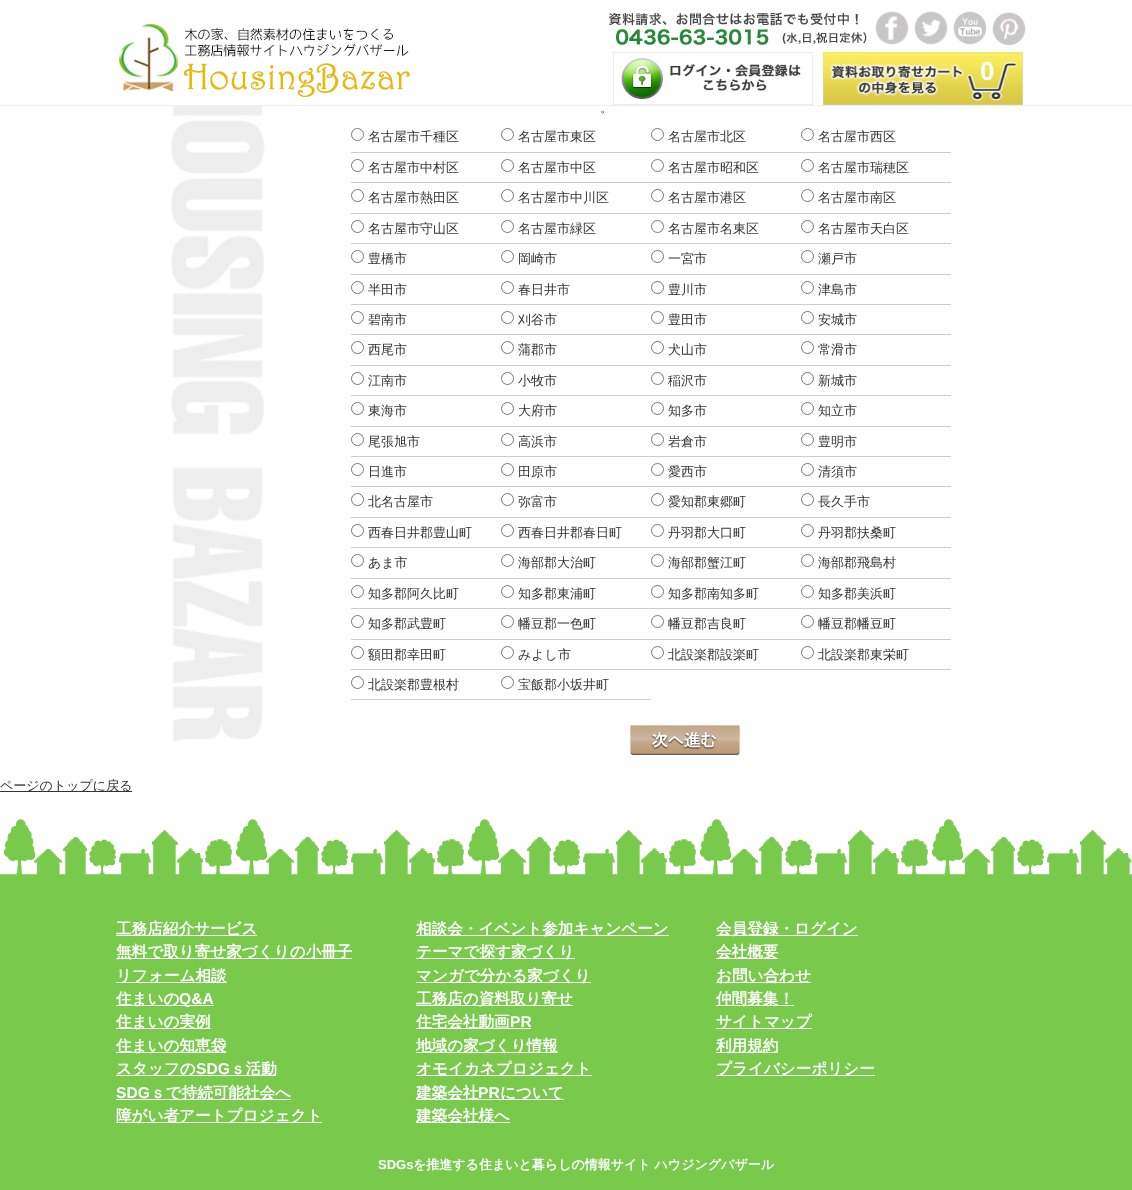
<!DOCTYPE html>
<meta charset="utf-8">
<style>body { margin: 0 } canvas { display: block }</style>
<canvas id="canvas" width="1132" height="1190"></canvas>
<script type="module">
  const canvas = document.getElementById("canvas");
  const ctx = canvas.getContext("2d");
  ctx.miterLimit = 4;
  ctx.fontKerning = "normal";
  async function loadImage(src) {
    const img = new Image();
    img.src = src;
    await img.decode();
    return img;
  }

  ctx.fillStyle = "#ffffff";
  ctx.fillRect(0, 0, 1132, 1190);
  ctx.fillStyle = "#eeeeee";
  ctx.fillRect(0, 105, 1132, 1);
  ctx.drawImage(await loadImage("img1.png"), 119, 24, 291, 73);
  ctx.drawImage(await loadImage("img2.png"), 608, 12, 259, 33);
  ctx.drawImage(await loadImage("img3.png"), 875, 11, 34, 34);
  ctx.drawImage(await loadImage("img4.png"), 914, 11, 34, 34);
  ctx.drawImage(await loadImage("img5.png"), 953, 11, 34, 34);
  ctx.drawImage(await loadImage("img6.png"), 992, 12, 34, 33);
  ctx.drawImage(await loadImage("img7.png"), 613, 52, 200, 53);
  ctx.drawImage(await loadImage("img8.png"), 823, 52, 200, 53);
  ctx.font = "bold 26px Liberation Sans";
  ctx.fillStyle = "#ffffff";
  ctx.fillText("0", 980, 80);
  ctx.drawImage(await loadImage("img9.png"), 171, 106, 94, 636);
  ctx.font = "500 13px WenQuanYi Zen Hei";
  ctx.fillStyle = "#333333";
  ctx.fillText("。", 600, 112);
  ctx.fillStyle = "#cccccc";
  ctx.fillRect(351, 152, 600, 1);
  ctx.beginPath();
  ctx.arc(357.5, 134.5, 6, 0, Math.PI * 2);
  ctx.strokeStyle = "#767676";
  ctx.stroke();
  ctx.fillStyle = "#333333";
  ctx.fillText("名古屋市千種区", 368, 141);
  ctx.beginPath();
  ctx.arc(507.5, 134.5, 6, 0, Math.PI * 2);
  ctx.stroke();
  ctx.fillText("名古屋市東区", 518, 141);
  ctx.beginPath();
  ctx.arc(657.5, 134.5, 6, 0, Math.PI * 2);
  ctx.stroke();
  ctx.fillText("名古屋市北区", 668, 141);
  ctx.beginPath();
  ctx.arc(807.5, 134.5, 6, 0, Math.PI * 2);
  ctx.stroke();
  ctx.fillText("名古屋市西区", 818, 141);
  ctx.fillStyle = "#cccccc";
  ctx.fillRect(351, 182, 600, 1);
  ctx.beginPath();
  ctx.arc(357.5, 165.5, 6, 0, Math.PI * 2);
  ctx.stroke();
  ctx.fillStyle = "#333333";
  ctx.fillText("名古屋市中村区", 368, 172);
  ctx.beginPath();
  ctx.arc(507.5, 165.5, 6, 0, Math.PI * 2);
  ctx.stroke();
  ctx.fillText("名古屋市中区", 518, 172);
  ctx.beginPath();
  ctx.arc(657.5, 165.5, 6, 0, Math.PI * 2);
  ctx.stroke();
  ctx.fillText("名古屋市昭和区", 668, 172);
  ctx.beginPath();
  ctx.arc(807.5, 165.5, 6, 0, Math.PI * 2);
  ctx.stroke();
  ctx.fillText("名古屋市瑞穂区", 818, 172);
  ctx.fillStyle = "#cccccc";
  ctx.fillRect(351, 213, 600, 1);
  ctx.beginPath();
  ctx.arc(357.5, 195.5, 6, 0, Math.PI * 2);
  ctx.stroke();
  ctx.fillStyle = "#333333";
  ctx.fillText("名古屋市熱田区", 368, 202);
  ctx.beginPath();
  ctx.arc(507.5, 195.5, 6, 0, Math.PI * 2);
  ctx.stroke();
  ctx.fillText("名古屋市中川区", 518, 202);
  ctx.beginPath();
  ctx.arc(657.5, 195.5, 6, 0, Math.PI * 2);
  ctx.stroke();
  ctx.fillText("名古屋市港区", 668, 202);
  ctx.beginPath();
  ctx.arc(807.5, 195.5, 6, 0, Math.PI * 2);
  ctx.stroke();
  ctx.fillText("名古屋市南区", 818, 202);
  ctx.fillStyle = "#cccccc";
  ctx.fillRect(351, 243, 600, 1);
  ctx.beginPath();
  ctx.arc(357.5, 226.5, 6, 0, Math.PI * 2);
  ctx.stroke();
  ctx.fillStyle = "#333333";
  ctx.fillText("名古屋市守山区", 368, 233);
  ctx.beginPath();
  ctx.arc(507.5, 226.5, 6, 0, Math.PI * 2);
  ctx.stroke();
  ctx.fillText("名古屋市緑区", 518, 233);
  ctx.beginPath();
  ctx.arc(657.5, 226.5, 6, 0, Math.PI * 2);
  ctx.stroke();
  ctx.fillText("名古屋市名東区", 668, 233);
  ctx.beginPath();
  ctx.arc(807.5, 226.5, 6, 0, Math.PI * 2);
  ctx.stroke();
  ctx.fillText("名古屋市天白区", 818, 233);
  ctx.fillStyle = "#cccccc";
  ctx.fillRect(351, 274, 600, 1);
  ctx.beginPath();
  ctx.arc(357.5, 256.5, 6, 0, Math.PI * 2);
  ctx.stroke();
  ctx.fillStyle = "#333333";
  ctx.fillText("豊橋市", 368, 263);
  ctx.beginPath();
  ctx.arc(507.5, 256.5, 6, 0, Math.PI * 2);
  ctx.stroke();
  ctx.fillText("岡崎市", 518, 263);
  ctx.beginPath();
  ctx.arc(657.5, 256.5, 6, 0, Math.PI * 2);
  ctx.stroke();
  ctx.fillText("一宮市", 668, 263);
  ctx.beginPath();
  ctx.arc(807.5, 256.5, 6, 0, Math.PI * 2);
  ctx.stroke();
  ctx.fillText("瀬戸市", 818, 263);
  ctx.fillStyle = "#cccccc";
  ctx.fillRect(351, 304, 600, 1);
  ctx.beginPath();
  ctx.arc(357.5, 287.5, 6, 0, Math.PI * 2);
  ctx.stroke();
  ctx.fillStyle = "#333333";
  ctx.fillText("半田市", 368, 294);
  ctx.beginPath();
  ctx.arc(507.5, 287.5, 6, 0, Math.PI * 2);
  ctx.stroke();
  ctx.fillText("春日井市", 518, 294);
  ctx.beginPath();
  ctx.arc(657.5, 287.5, 6, 0, Math.PI * 2);
  ctx.stroke();
  ctx.fillText("豊川市", 668, 294);
  ctx.beginPath();
  ctx.arc(807.5, 287.5, 6, 0, Math.PI * 2);
  ctx.stroke();
  ctx.fillText("津島市", 818, 294);
  ctx.fillStyle = "#cccccc";
  ctx.fillRect(351, 334, 600, 1);
  ctx.beginPath();
  ctx.arc(357.5, 317.5, 6, 0, Math.PI * 2);
  ctx.stroke();
  ctx.fillStyle = "#333333";
  ctx.fillText("碧南市", 368, 324);
  ctx.beginPath();
  ctx.arc(507.5, 317.5, 6, 0, Math.PI * 2);
  ctx.stroke();
  ctx.fillText("刈谷市", 518, 324);
  ctx.beginPath();
  ctx.arc(657.5, 317.5, 6, 0, Math.PI * 2);
  ctx.stroke();
  ctx.fillText("豊田市", 668, 324);
  ctx.beginPath();
  ctx.arc(807.5, 317.5, 6, 0, Math.PI * 2);
  ctx.stroke();
  ctx.fillText("安城市", 818, 324);
  ctx.fillStyle = "#cccccc";
  ctx.fillRect(351, 365, 600, 1);
  ctx.beginPath();
  ctx.arc(357.5, 347.5, 6, 0, Math.PI * 2);
  ctx.stroke();
  ctx.fillStyle = "#333333";
  ctx.fillText("西尾市", 368, 354);
  ctx.beginPath();
  ctx.arc(507.5, 347.5, 6, 0, Math.PI * 2);
  ctx.stroke();
  ctx.fillText("蒲郡市", 518, 354);
  ctx.beginPath();
  ctx.arc(657.5, 347.5, 6, 0, Math.PI * 2);
  ctx.stroke();
  ctx.fillText("犬山市", 668, 354);
  ctx.beginPath();
  ctx.arc(807.5, 347.5, 6, 0, Math.PI * 2);
  ctx.stroke();
  ctx.fillText("常滑市", 818, 354);
  ctx.fillStyle = "#cccccc";
  ctx.fillRect(351, 395, 600, 1);
  ctx.beginPath();
  ctx.arc(357.5, 378.5, 6, 0, Math.PI * 2);
  ctx.stroke();
  ctx.fillStyle = "#333333";
  ctx.fillText("江南市", 368, 385);
  ctx.beginPath();
  ctx.arc(507.5, 378.5, 6, 0, Math.PI * 2);
  ctx.stroke();
  ctx.fillText("小牧市", 518, 385);
  ctx.beginPath();
  ctx.arc(657.5, 378.5, 6, 0, Math.PI * 2);
  ctx.stroke();
  ctx.fillText("稲沢市", 668, 385);
  ctx.beginPath();
  ctx.arc(807.5, 378.5, 6, 0, Math.PI * 2);
  ctx.stroke();
  ctx.fillText("新城市", 818, 385);
  ctx.fillStyle = "#cccccc";
  ctx.fillRect(351, 426, 600, 1);
  ctx.beginPath();
  ctx.arc(357.5, 408.5, 6, 0, Math.PI * 2);
  ctx.stroke();
  ctx.fillStyle = "#333333";
  ctx.fillText("東海市", 368, 415);
  ctx.beginPath();
  ctx.arc(507.5, 408.5, 6, 0, Math.PI * 2);
  ctx.stroke();
  ctx.fillText("大府市", 518, 415);
  ctx.beginPath();
  ctx.arc(657.5, 408.5, 6, 0, Math.PI * 2);
  ctx.stroke();
  ctx.fillText("知多市", 668, 415);
  ctx.beginPath();
  ctx.arc(807.5, 408.5, 6, 0, Math.PI * 2);
  ctx.stroke();
  ctx.fillText("知立市", 818, 415);
  ctx.fillStyle = "#cccccc";
  ctx.fillRect(351, 456, 600, 1);
  ctx.beginPath();
  ctx.arc(357.5, 439.5, 6, 0, Math.PI * 2);
  ctx.stroke();
  ctx.fillStyle = "#333333";
  ctx.fillText("尾張旭市", 368, 446);
  ctx.beginPath();
  ctx.arc(507.5, 439.5, 6, 0, Math.PI * 2);
  ctx.stroke();
  ctx.fillText("高浜市", 518, 446);
  ctx.beginPath();
  ctx.arc(657.5, 439.5, 6, 0, Math.PI * 2);
  ctx.stroke();
  ctx.fillText("岩倉市", 668, 446);
  ctx.beginPath();
  ctx.arc(807.5, 439.5, 6, 0, Math.PI * 2);
  ctx.stroke();
  ctx.fillText("豊明市", 818, 446);
  ctx.fillStyle = "#cccccc";
  ctx.fillRect(351, 486, 600, 1);
  ctx.beginPath();
  ctx.arc(357.5, 469.5, 6, 0, Math.PI * 2);
  ctx.stroke();
  ctx.fillStyle = "#333333";
  ctx.fillText("日進市", 368, 476);
  ctx.beginPath();
  ctx.arc(507.5, 469.5, 6, 0, Math.PI * 2);
  ctx.stroke();
  ctx.fillText("田原市", 518, 476);
  ctx.beginPath();
  ctx.arc(657.5, 469.5, 6, 0, Math.PI * 2);
  ctx.stroke();
  ctx.fillText("愛西市", 668, 476);
  ctx.beginPath();
  ctx.arc(807.5, 469.5, 6, 0, Math.PI * 2);
  ctx.stroke();
  ctx.fillText("清須市", 818, 476);
  ctx.fillStyle = "#cccccc";
  ctx.fillRect(351, 517, 600, 1);
  ctx.beginPath();
  ctx.arc(357.5, 499.5, 6, 0, Math.PI * 2);
  ctx.stroke();
  ctx.fillStyle = "#333333";
  ctx.fillText("北名古屋市", 368, 506);
  ctx.beginPath();
  ctx.arc(507.5, 499.5, 6, 0, Math.PI * 2);
  ctx.stroke();
  ctx.fillText("弥富市", 518, 506);
  ctx.beginPath();
  ctx.arc(657.5, 499.5, 6, 0, Math.PI * 2);
  ctx.stroke();
  ctx.fillText("愛知郡東郷町", 668, 506);
  ctx.beginPath();
  ctx.arc(807.5, 499.5, 6, 0, Math.PI * 2);
  ctx.stroke();
  ctx.fillText("長久手市", 818, 506);
  ctx.fillStyle = "#cccccc";
  ctx.fillRect(351, 547, 600, 1);
  ctx.beginPath();
  ctx.arc(357.5, 530.5, 6, 0, Math.PI * 2);
  ctx.stroke();
  ctx.fillStyle = "#333333";
  ctx.fillText("西春日井郡豊山町", 368, 537);
  ctx.beginPath();
  ctx.arc(507.5, 530.5, 6, 0, Math.PI * 2);
  ctx.stroke();
  ctx.fillText("西春日井郡春日町", 518, 537);
  ctx.beginPath();
  ctx.arc(657.5, 530.5, 6, 0, Math.PI * 2);
  ctx.stroke();
  ctx.fillText("丹羽郡大口町", 668, 537);
  ctx.beginPath();
  ctx.arc(807.5, 530.5, 6, 0, Math.PI * 2);
  ctx.stroke();
  ctx.fillText("丹羽郡扶桑町", 818, 537);
  ctx.fillStyle = "#cccccc";
  ctx.fillRect(351, 578, 600, 1);
  ctx.beginPath();
  ctx.arc(357.5, 560.5, 6, 0, Math.PI * 2);
  ctx.stroke();
  ctx.fillStyle = "#333333";
  ctx.fillText("あま市", 368, 567);
  ctx.beginPath();
  ctx.arc(507.5, 560.5, 6, 0, Math.PI * 2);
  ctx.stroke();
  ctx.fillText("海部郡大治町", 518, 567);
  ctx.beginPath();
  ctx.arc(657.5, 560.5, 6, 0, Math.PI * 2);
  ctx.stroke();
  ctx.fillText("海部郡蟹江町", 668, 567);
  ctx.beginPath();
  ctx.arc(807.5, 560.5, 6, 0, Math.PI * 2);
  ctx.stroke();
  ctx.fillText("海部郡飛島村", 818, 567);
  ctx.fillStyle = "#cccccc";
  ctx.fillRect(351, 608, 600, 1);
  ctx.beginPath();
  ctx.arc(357.5, 591.5, 6, 0, Math.PI * 2);
  ctx.stroke();
  ctx.fillStyle = "#333333";
  ctx.fillText("知多郡阿久比町", 368, 598);
  ctx.beginPath();
  ctx.arc(507.5, 591.5, 6, 0, Math.PI * 2);
  ctx.stroke();
  ctx.fillText("知多郡東浦町", 518, 598);
  ctx.beginPath();
  ctx.arc(657.5, 591.5, 6, 0, Math.PI * 2);
  ctx.stroke();
  ctx.fillText("知多郡南知多町", 668, 598);
  ctx.beginPath();
  ctx.arc(807.5, 591.5, 6, 0, Math.PI * 2);
  ctx.stroke();
  ctx.fillText("知多郡美浜町", 818, 598);
  ctx.fillStyle = "#cccccc";
  ctx.fillRect(351, 639, 600, 1);
  ctx.beginPath();
  ctx.arc(357.5, 621.5, 6, 0, Math.PI * 2);
  ctx.stroke();
  ctx.fillStyle = "#333333";
  ctx.fillText("知多郡武豊町", 368, 628);
  ctx.beginPath();
  ctx.arc(507.5, 621.5, 6, 0, Math.PI * 2);
  ctx.stroke();
  ctx.fillText("幡豆郡一色町", 518, 628);
  ctx.beginPath();
  ctx.arc(657.5, 621.5, 6, 0, Math.PI * 2);
  ctx.stroke();
  ctx.fillText("幡豆郡吉良町", 668, 628);
  ctx.beginPath();
  ctx.arc(807.5, 621.5, 6, 0, Math.PI * 2);
  ctx.stroke();
  ctx.fillText("幡豆郡幡豆町", 818, 628);
  ctx.fillStyle = "#cccccc";
  ctx.fillRect(351, 669, 600, 1);
  ctx.beginPath();
  ctx.arc(357.5, 652.5, 6, 0, Math.PI * 2);
  ctx.stroke();
  ctx.fillStyle = "#333333";
  ctx.fillText("額田郡幸田町", 368, 659);
  ctx.beginPath();
  ctx.arc(507.5, 652.5, 6, 0, Math.PI * 2);
  ctx.stroke();
  ctx.fillText("みよし市", 518, 659);
  ctx.beginPath();
  ctx.arc(657.5, 652.5, 6, 0, Math.PI * 2);
  ctx.stroke();
  ctx.fillText("北設楽郡設楽町", 668, 659);
  ctx.beginPath();
  ctx.arc(807.5, 652.5, 6, 0, Math.PI * 2);
  ctx.stroke();
  ctx.fillText("北設楽郡東栄町", 818, 659);
  ctx.fillStyle = "#cccccc";
  ctx.fillRect(351, 699, 300, 1);
  ctx.beginPath();
  ctx.arc(357.5, 682.5, 6, 0, Math.PI * 2);
  ctx.stroke();
  ctx.fillStyle = "#333333";
  ctx.fillText("北設楽郡豊根村", 368, 689);
  ctx.beginPath();
  ctx.arc(507.5, 682.5, 6, 0, Math.PI * 2);
  ctx.stroke();
  ctx.fillText("宝飯郡小坂井町", 518, 689);
  ctx.drawImage(await loadImage("img10.png"), 630, 725, 110, 30);
  ctx.fillRect(0, 791, 132, 1);
  ctx.fillText("ページのトップに戻る", 0, 790);
  ctx.fillStyle = "#78c94c";
  ctx.fillRect(0, 886, 1132, 304);
  ctx.drawImage(await loadImage("img11.png"), 0, 819, 1132, 67);
  ctx.fillStyle = "#ffffff";
  ctx.fillRect(116, 935, 141, 1);
  ctx.font = "bold 15.6px WenQuanYi Zen Hei";
  ctx.fillText("工務店紹介サービス", 116, 934);
  ctx.fillRect(116, 958, 236, 1);
  ctx.fillText("無料で取り寄せ家づくりの小冊子", 116, 957);
  ctx.fillRect(116, 982, 111, 1);
  ctx.fillText("リフォーム相談", 116, 981);
  ctx.fillRect(116, 1005, 98, 1);
  ctx.fillText("住まいの", 116, 1004);
  ctx.font = "bold 15.6px Liberation Sans";
  ctx.fillText("Q&A", 179, 1004);
  ctx.fillRect(116, 1028, 95, 1);
  ctx.font = "bold 15.6px WenQuanYi Zen Hei";
  ctx.fillText("住まいの実例", 116, 1027);
  ctx.fillRect(116, 1052, 110, 1);
  ctx.fillText("住まいの知恵袋", 116, 1051);
  ctx.fillRect(116, 1075, 160, 1);
  ctx.fillText("スタッフの", 116, 1074);
  ctx.font = "bold 15.6px Liberation Sans";
  ctx.fillText("SDG", 196, 1074);
  ctx.font = "bold 15.6px WenQuanYi Zen Hei";
  ctx.fillText("ｓ活動", 230, 1074);
  ctx.font = "bold 15.6px Liberation Sans";
  ctx.fillText("SDG", 116, 1098);
  ctx.fillRect(116, 1099, 175, 1);
  ctx.font = "bold 15.6px WenQuanYi Zen Hei";
  ctx.fillText("ｓで持続可能社会へ", 150, 1098);
  ctx.fillRect(116, 1122, 206, 1);
  ctx.fillText("障がい者アートプロジェクト", 116, 1121);
  ctx.fillRect(416, 935, 253, 1);
  ctx.fillText("相談会・イベント参加キャンペーン", 416, 934);
  ctx.fillRect(416, 958, 159, 1);
  ctx.fillText("テーマで探す家づくり", 416, 957);
  ctx.fillRect(416, 982, 175, 1);
  ctx.fillText("マンガで分かる家づくり", 416, 981);
  ctx.fillRect(416, 1005, 157, 1);
  ctx.fillText("工務店の資料取り寄せ", 416, 1004);
  ctx.fillRect(416, 1028, 115, 1);
  ctx.fillText("住宅会社動画", 416, 1027);
  ctx.font = "bold 15.6px Liberation Sans";
  ctx.fillText("PR", 510, 1027);
  ctx.fillRect(416, 1052, 142, 1);
  ctx.font = "bold 15.6px WenQuanYi Zen Hei";
  ctx.fillText("地域の家づくり情報", 416, 1051);
  ctx.fillRect(416, 1075, 176, 1);
  ctx.fillText("オモイカネプロジェクト", 416, 1074);
  ctx.fillRect(416, 1099, 148, 1);
  ctx.fillText("建築会社", 416, 1098);
  ctx.font = "bold 15.6px Liberation Sans";
  ctx.fillText("PR", 478, 1098);
  ctx.font = "bold 15.6px WenQuanYi Zen Hei";
  ctx.fillText("について", 500, 1098);
  ctx.fillRect(416, 1122, 94, 1);
  ctx.fillText("建築会社様へ", 416, 1121);
  ctx.fillRect(716, 935, 142, 1);
  ctx.fillText("会員登録・ログイン", 716, 934);
  ctx.fillRect(716, 958, 62, 1);
  ctx.fillText("会社概要", 716, 957);
  ctx.fillRect(716, 982, 95, 1);
  ctx.fillText("お問い合わせ", 716, 981);
  ctx.fillRect(716, 1005, 78, 1);
  ctx.fillText("仲間募集！", 716, 1004);
  ctx.fillRect(716, 1028, 96, 1);
  ctx.fillText("サイトマップ", 716, 1027);
  ctx.fillRect(716, 1052, 62, 1);
  ctx.fillText("利用規約", 716, 1051);
  ctx.fillRect(716, 1075, 159, 1);
  ctx.fillText("プライバシーポリシー", 716, 1074);
  ctx.font = "bold 13px Liberation Sans";
  ctx.fillText("SDGs", 378, 1169);
  ctx.font = "bold 13px WenQuanYi Zen Hei";
  ctx.fillText("を推進する住まいと暮らしの情報サイト ハウジングバザール", 413, 1169);
</script>
